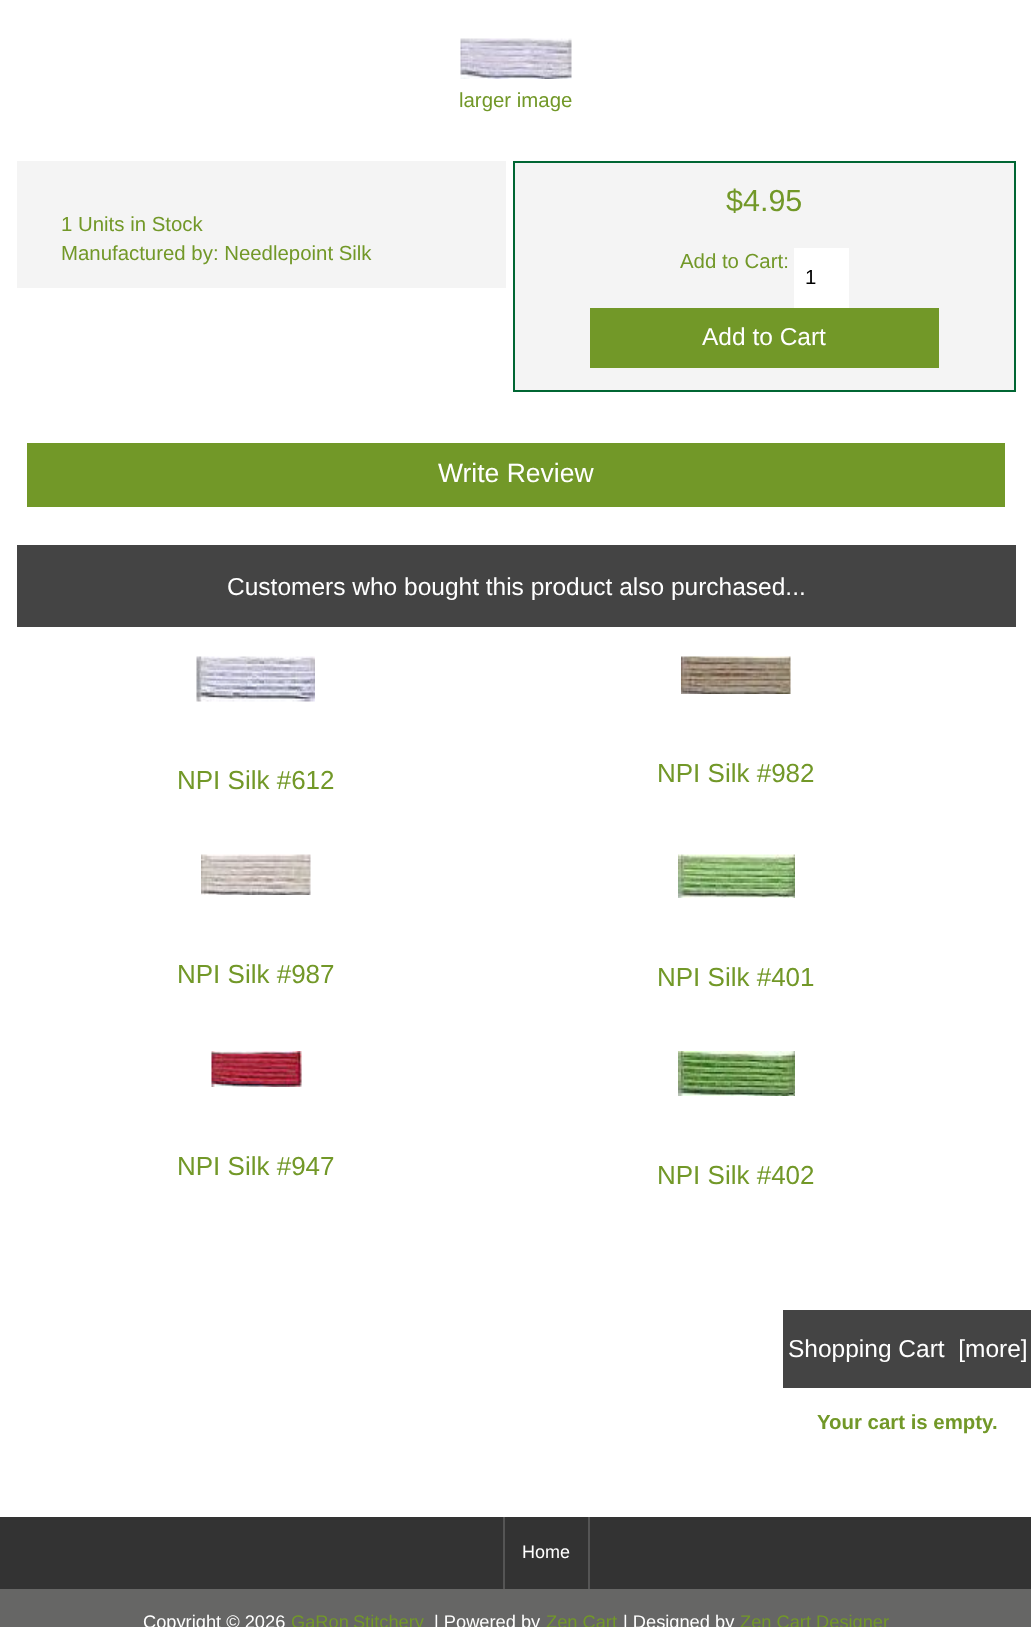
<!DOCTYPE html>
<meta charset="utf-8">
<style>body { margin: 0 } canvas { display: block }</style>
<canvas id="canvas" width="1031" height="1627"></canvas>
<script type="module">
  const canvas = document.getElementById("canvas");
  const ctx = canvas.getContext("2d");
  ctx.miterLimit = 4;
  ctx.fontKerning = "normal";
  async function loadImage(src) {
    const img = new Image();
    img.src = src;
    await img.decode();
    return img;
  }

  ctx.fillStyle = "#ffffff";
  ctx.fillRect(0, 0, 1031, 1627);
  ctx.drawImage(await loadImage("img1.png"), 460, 38, 112, 41);
  ctx.font = "20.4px Liberation Sans";
  ctx.fillStyle = "#729828";
  ctx.fillText("larger image", 459, 107);
  ctx.fillStyle = "#f4f4f4";
  ctx.fillRect(17, 161, 489, 127);
  ctx.fillStyle = "#729828";
  ctx.fillText("1 Units in Stock", 61, 231);
  ctx.fillText("Manufactured by: Needlepoint Silk", 61, 260);
  ctx.fillStyle = "#f4f4f4";
  ctx.beginPath();
  ctx.rect(514, 162, 501, 229);
  ctx.fill();
  ctx.strokeStyle = "#006633";
  ctx.lineWidth = 2;
  ctx.stroke();
  ctx.font = "30.5px Liberation Sans";
  ctx.fillStyle = "#729828";
  ctx.fillText("$4.95", 726, 211);
  ctx.font = "20.4px Liberation Sans";
  ctx.fillText("Add to Cart:", 680, 268);
  ctx.fillStyle = "#ffffff";
  ctx.fillRect(794, 248, 55, 60);
  ctx.fillStyle = "#000000";
  ctx.fillText("1", 805, 284);
  ctx.fillStyle = "#729828";
  ctx.fillRect(590, 308, 349, 60);
  ctx.font = "24.5px Liberation Sans";
  ctx.fillStyle = "#ffffff";
  ctx.fillText("Add to Cart", 702, 345);
  ctx.fillStyle = "#729828";
  ctx.fillRect(27, 443, 978, 64);
  ctx.font = "26.5px Liberation Sans";
  ctx.fillStyle = "#ffffff";
  ctx.fillText("Write Review", 438, 482);
  ctx.fillStyle = "#444444";
  ctx.fillRect(17, 545, 999, 82);
  ctx.font = "24.5px Liberation Sans";
  ctx.fillStyle = "#ffffff";
  ctx.fillText("Customers who bought this product also purchased...", 227, 595);
  ctx.drawImage(await loadImage("img2.png"), 196, 656, 119, 46);
  ctx.font = "26px Liberation Sans";
  ctx.fillStyle = "#729828";
  ctx.fillText("NPI Silk #612", 177, 789);
  ctx.drawImage(await loadImage("img3.png"), 681, 656, 110, 38);
  ctx.fillText("NPI Silk #982", 657, 782);
  ctx.drawImage(await loadImage("img4.png"), 201, 854, 110, 41);
  ctx.fillText("NPI Silk #987", 177, 983);
  ctx.drawImage(await loadImage("img5.png"), 678, 854, 117, 44);
  ctx.fillText("NPI Silk #401", 657, 986);
  ctx.drawImage(await loadImage("img6.png"), 211, 1051, 91, 36);
  ctx.fillText("NPI Silk #947", 177, 1175);
  ctx.drawImage(await loadImage("img7.png"), 678, 1051, 117, 45);
  ctx.fillText("NPI Silk #402", 657, 1184);
  ctx.fillStyle = "#444444";
  ctx.fillRect(783, 1310, 248, 78);
  ctx.font = "24.5px Liberation Sans";
  ctx.fillStyle = "#ffffff";
  ctx.fillText("Shopping Cart  [more]", 788, 1357);
  ctx.font = "bold 20.4px Liberation Sans";
  ctx.fillStyle = "#729828";
  ctx.fillText("Your cart is empty.", 817, 1429);
  ctx.fillStyle = "#333333";
  ctx.fillRect(0, 1517, 1031, 72);
  ctx.fillStyle = "#555555";
  ctx.fillRect(588, 1517, 2, 72);
  ctx.fillRect(503, 1517, 2, 72);
  ctx.font = "18px Liberation Sans";
  ctx.fillStyle = "#ffffff";
  ctx.fillText("Home", 522, 1558);
  ctx.fillStyle = "#666665";
  ctx.fillRect(0, 1589, 1031, 38);
  ctx.font = "18.25px Liberation Sans";
  ctx.fillStyle = "#ffffff";
  ctx.fillText("Copyright © 2026", 143, 1628);
  ctx.wordSpacing = "-1px";
  ctx.fillStyle = "#729828";
  ctx.fillText("GaRon Stitchery", 291, 1628);
  ctx.wordSpacing = "0px";
  ctx.fillStyle = "#ffffff";
  ctx.fillText("| Powered by", 434, 1628);
  ctx.fillStyle = "#729828";
  ctx.fillText("Zen Cart", 546, 1628);
  ctx.fillStyle = "#ffffff";
  ctx.fillText("| Designed by", 623, 1628);
  ctx.fillStyle = "#729828";
  ctx.fillText("Zen Cart Designer", 740, 1628);
</script>
